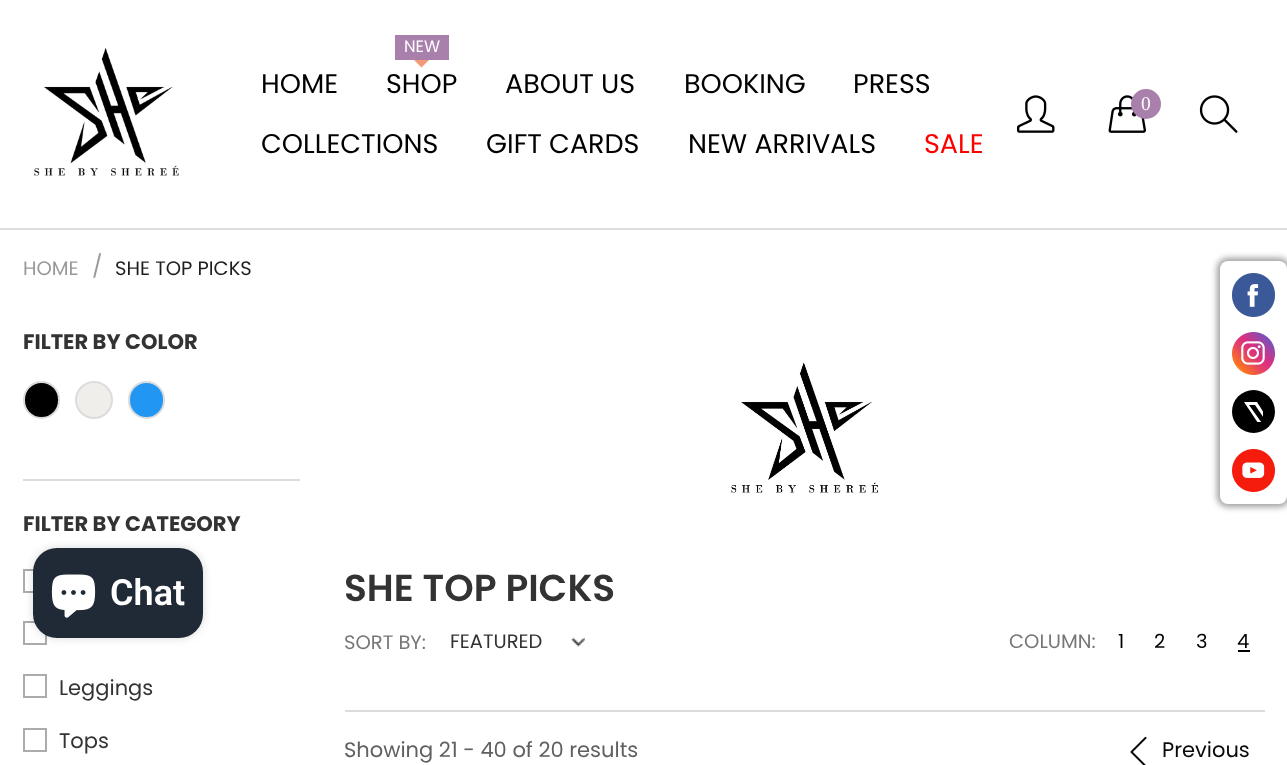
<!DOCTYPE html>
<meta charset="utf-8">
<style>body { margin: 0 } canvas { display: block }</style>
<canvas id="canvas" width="1287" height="765"></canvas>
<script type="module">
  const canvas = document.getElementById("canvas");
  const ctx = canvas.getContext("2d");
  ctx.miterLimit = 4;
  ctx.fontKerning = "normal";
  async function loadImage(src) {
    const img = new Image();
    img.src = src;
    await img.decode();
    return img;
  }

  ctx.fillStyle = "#ffffff";
  ctx.fillRect(0, 0, 1287, 765);
  ctx.drawImage(await loadImage("img1.png"), 34, 48, 145, 128);
  ctx.font = "27px Poppins";
  ctx.fillStyle = "#000000";
  ctx.fillText("HOME", 261, 93);
  ctx.fillStyle = "#a97fac";
  ctx.fillRect(395, 35, 54, 25);
  ctx.font = "16.5px Poppins";
  ctx.fillStyle = "#ffffff";
  ctx.fillText("NEW", 404, 52);
  ctx.fillStyle = "#f39a78";
  ctx.beginPath();
  ctx.moveTo(414, 60);
  ctx.lineTo(429, 60);
  ctx.lineTo(421.5, 67.5);
  ctx.closePath();
  ctx.fill();
  ctx.font = "27px Poppins";
  ctx.fillStyle = "#000000";
  ctx.fillText("SHOP", 386, 93);
  ctx.fillText("ABOUT US", 505, 93);
  ctx.fillText("BOOKING", 684, 93);
  ctx.fillText("PRESS", 853, 93);
  ctx.fillText("COLLECTIONS", 261, 153);
  ctx.fillText("GIFT CARDS", 486, 153);
  ctx.fillText("NEW ARRIVALS", 688, 153);
  ctx.fillStyle = "#ff0000";
  ctx.fillText("SALE", 924, 153);
  ctx.drawImage(await loadImage("img2.png"), 1017, 95, 38, 38);
  ctx.drawImage(await loadImage("img3.png"), 1108, 95, 38, 38);
  ctx.fillStyle = "#a97fac";
  ctx.beginPath();
  ctx.arc(1146, 104, 15, 0, Math.PI * 2);
  ctx.fill();
  ctx.font = "19.5px Liberation Serif";
  ctx.fillStyle = "#ffffff";
  ctx.fillText("0", 1141, 110);
  ctx.drawImage(await loadImage("img4.png"), 1199, 95, 39, 38);
  ctx.fillStyle = "#9e9e9e";
  ctx.filter = "blur(3px)";
  ctx.beginPath();
  ctx.roundRect(1217, 258, 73, 249, 11);
  ctx.fill();
  ctx.filter = "none";
  ctx.fillStyle = "#ffffff";
  ctx.beginPath();
  ctx.roundRect(1220, 261, 67, 243, 8);
  ctx.fill();
  ctx.drawImage(await loadImage("img5.png"), 1232, 273, 43, 44);
  ctx.drawImage(await loadImage("img6.png"), 1232, 332, 43, 43);
  ctx.fillStyle = "#000000";
  ctx.beginPath();
  ctx.arc(1253.5, 411.5, 21.5, 0, Math.PI * 2);
  ctx.fill();
  ctx.save();
  ctx.beginPath();
  ctx.rect(1243, 402, 20, 20);
  ctx.clip();
  ctx.fillStyle = "#ffffff";
  ctx.beginPath();
  ctx.moveTo(1269, 420);
  ctx.lineTo(1285, 402);
  ctx.lineTo(1281, 402);
  ctx.lineTo(1267, 418);
  ctx.lineTo(1257, 402);
  ctx.lineTo(1244, 402);
  ctx.lineTo(1260, 426);
  ctx.lineTo(1244, 445);
  ctx.lineTo(1248, 445);
  ctx.lineTo(1262, 428);
  ctx.lineTo(1274, 445);
  ctx.lineTo(1286, 445);
  ctx.closePath();
  ctx.moveTo(1264, 426);
  ctx.lineTo(1249, 405);
  ctx.lineTo(1255, 405);
  ctx.lineTo(1281, 443);
  ctx.lineTo(1275, 443);
  ctx.closePath();
  ctx.fill();
  ctx.restore();
  ctx.drawImage(await loadImage("img7.png"), 1232, 449, 43, 43);
  ctx.fillStyle = "#dddddd";
  ctx.fillRect(0, 228, 1287, 2);
  ctx.font = "19.5px Poppins";
  ctx.fillStyle = "#999999";
  ctx.fillText("HOME", 23, 275);
  ctx.font = "22px Poppins";
  ctx.fillText("/", 92, 274);
  ctx.font = "19.5px Poppins";
  ctx.fillStyle = "#1e1e1e";
  ctx.fillText("SHE TOP PICKS", 115, 275);
  ctx.font = "bold 21px Poppins";
  ctx.fillStyle = "#333333";
  ctx.fillText("FILTER BY COLOR", 23, 349);
  ctx.fillStyle = "#000000";
  ctx.beginPath();
  ctx.roundRect(24, 382, 35, 36, 17.5);
  ctx.fill();
  ctx.strokeStyle = "#dcdcdc";
  ctx.lineWidth = 2;
  ctx.stroke();
  ctx.fillStyle = "#efeeeb";
  ctx.beginPath();
  ctx.arc(94, 400, 18, 0, Math.PI * 2);
  ctx.fill();
  ctx.stroke();
  ctx.fillStyle = "#2196f3";
  ctx.beginPath();
  ctx.roundRect(129, 382, 35, 36, 17.5);
  ctx.fill();
  ctx.stroke();
  ctx.fillStyle = "#dcdcdc";
  ctx.fillRect(23, 479, 277, 2);
  ctx.fillStyle = "#333333";
  ctx.fillText("FILTER BY CATEGORY", 23, 531);
  ctx.strokeStyle = "#ababab";
  ctx.strokeRect(24, 570, 22, 22);
  ctx.strokeRect(24, 622, 22, 22);
  ctx.strokeRect(24, 675, 22, 22);
  ctx.font = "21px Poppins";
  ctx.fillText("Leggings", 59, 695);
  ctx.strokeRect(24, 729, 22, 22);
  ctx.fillText("Tops", 59, 748);
  ctx.drawImage(await loadImage("img8.png"), 731, 362, 148, 131);
  ctx.font = "600 37.5px Poppins";
  ctx.fillText("SHE TOP PICKS", 344, 601);
  ctx.font = "19.5px Poppins";
  ctx.fillStyle = "#777777";
  ctx.fillText("SORT BY:", 344, 649);
  ctx.drawImage(await loadImage("img9.png"), 571, 637, 14, 10);
  ctx.fillStyle = "#333333";
  ctx.fillText("FEATURED", 450, 648);
  ctx.fillStyle = "#777777";
  ctx.fillText("COLUMN:", 1009, 648);
  ctx.fillStyle = "#000000";
  ctx.fillText("1", 1118, 648);
  ctx.fillText("2", 1154, 648);
  ctx.fillText("3", 1196, 648);
  ctx.fillText("4", 1237, 648);
  ctx.fillRect(1238, 650, 12, 2);
  ctx.fillStyle = "#dcdcdc";
  ctx.fillRect(345, 710, 920, 2);
  ctx.font = "21px Poppins";
  ctx.fillStyle = "#606060";
  ctx.fillText("Showing 21 - 40 of 20 results", 344, 757);
  ctx.drawImage(await loadImage("img10.png"), 1130, 736, 17, 29);
  ctx.fillStyle = "#0a0a0a";
  ctx.fillText("Previous", 1162, 757);
  ctx.fillStyle = "rgba(0, 0, 0, 0.15)";
  ctx.filter = "blur(4px)";
  ctx.beginPath();
  ctx.roundRect(33, 548, 170, 90, 24);
  ctx.fill();
  ctx.filter = "none";
  ctx.fillStyle = "#202a36";
  ctx.beginPath();
  ctx.roundRect(33, 548, 170, 90, 24);
  ctx.fill();
  ctx.drawImage(await loadImage("img11.png"), 51, 574, 45, 44);
  ctx.font = "600 36px Roboto";
  ctx.fillStyle = "#ffffff";
  ctx.fillText("Chat", 110, 605);
</script>
